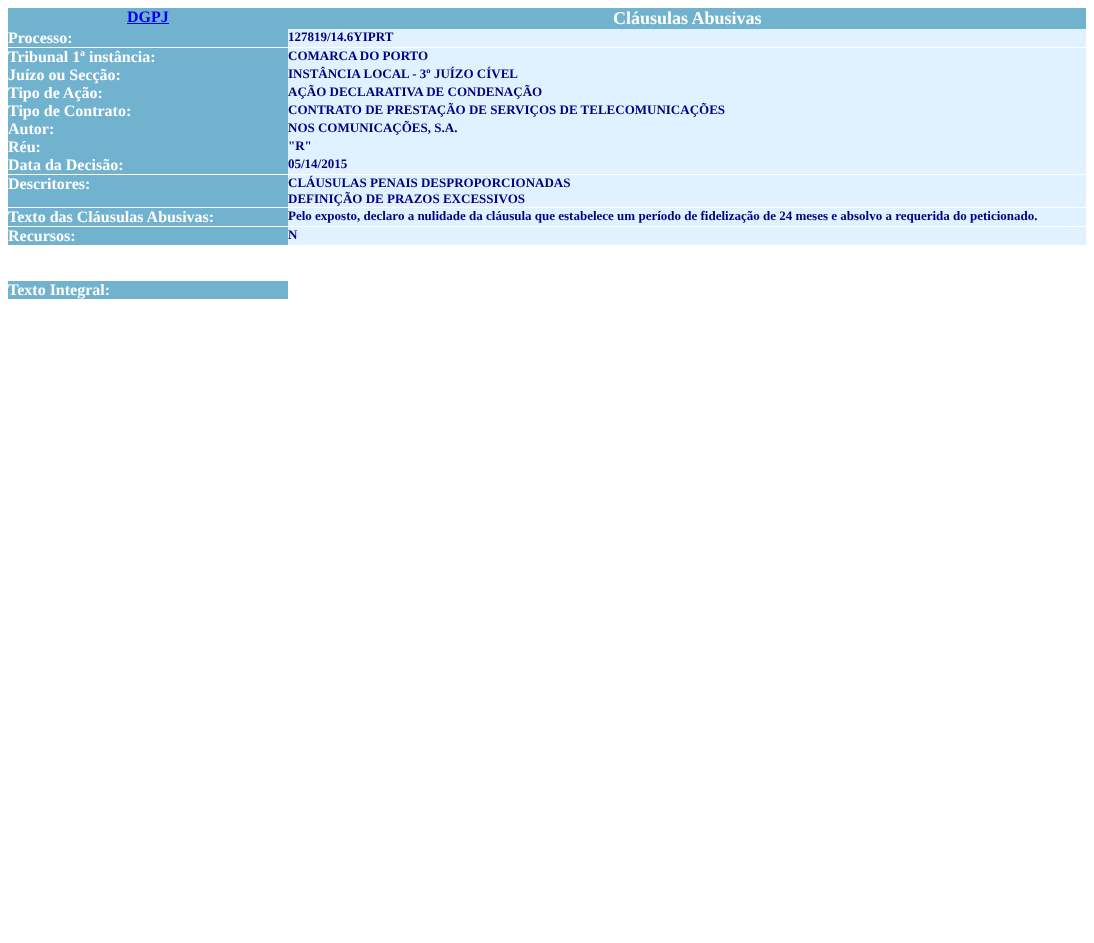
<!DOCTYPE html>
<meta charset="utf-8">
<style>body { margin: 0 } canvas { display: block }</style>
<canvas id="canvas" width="1094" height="943"></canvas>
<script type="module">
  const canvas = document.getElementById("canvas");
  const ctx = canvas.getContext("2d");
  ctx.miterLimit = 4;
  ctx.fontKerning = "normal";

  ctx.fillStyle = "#ffffff";
  ctx.fillRect(0, 0, 1094, 943);
  ctx.fillStyle = "#71b2cf";
  ctx.fillRect(8, 8, 1078, 21);
  ctx.font = "bold 16px Liberation Serif";
  ctx.fillStyle = "#0000ee";
  ctx.fillText("DGPJ", 127, 22);
  ctx.fillRect(127, 23, 42, 1);
  ctx.font = "bold 18px Liberation Serif";
  ctx.fillStyle = "#ffffff";
  ctx.fillText("Cláusulas Abusivas", 613, 24);
  ctx.fillStyle = "#71b2cf";
  ctx.fillRect(8, 29, 280, 18);
  ctx.font = "bold 16px Liberation Serif";
  ctx.fillStyle = "#ffffff";
  ctx.fillText("Processo:", 8, 43);
  ctx.fillStyle = "#e0f1ff";
  ctx.fillRect(288, 29, 798, 18);
  ctx.font = "bold 13px Liberation Serif";
  ctx.fillStyle = "#000080";
  ctx.fillText("127819/14.6YIPRT", 288, 41);
  ctx.fillStyle = "#71b2cf";
  ctx.fillRect(8, 48, 280, 126);
  ctx.font = "bold 16px Liberation Serif";
  ctx.fillStyle = "#ffffff";
  ctx.fillText("Tribunal 1ª instância:", 8, 62);
  ctx.fillStyle = "#e0f1ff";
  ctx.fillRect(288, 48, 798, 126);
  ctx.font = "bold 13px Liberation Serif";
  ctx.fillStyle = "#000080";
  ctx.fillText("COMARCA DO PORTO", 288, 60);
  ctx.font = "bold 16px Liberation Serif";
  ctx.fillStyle = "#ffffff";
  ctx.fillText("Juízo ou Secção:", 8, 80);
  ctx.font = "bold 13px Liberation Serif";
  ctx.fillStyle = "#000080";
  ctx.fillText("INSTÂNCIA LOCAL - 3º JUÍZO CÍVEL", 288, 78);
  ctx.font = "bold 16px Liberation Serif";
  ctx.fillStyle = "#ffffff";
  ctx.fillText("Tipo de Ação:", 8, 98);
  ctx.font = "bold 13px Liberation Serif";
  ctx.fillStyle = "#000080";
  ctx.fillText("AÇÃO DECLARATIVA DE CONDENAÇÃO", 288, 96);
  ctx.font = "bold 16px Liberation Serif";
  ctx.fillStyle = "#ffffff";
  ctx.fillText("Tipo de Contrato:", 8, 116);
  ctx.font = "bold 13px Liberation Serif";
  ctx.fillStyle = "#000080";
  ctx.fillText("CONTRATO DE PRESTAÇÃO DE SERVIÇOS DE TELECOMUNICAÇÕES", 288, 114);
  ctx.font = "bold 16px Liberation Serif";
  ctx.fillStyle = "#ffffff";
  ctx.fillText("Autor:", 8, 134);
  ctx.font = "bold 13px Liberation Serif";
  ctx.fillStyle = "#000080";
  ctx.fillText("NOS COMUNICAÇÕES, S.A.", 288, 132);
  ctx.font = "bold 16px Liberation Serif";
  ctx.fillStyle = "#ffffff";
  ctx.fillText("Réu:", 8, 152);
  ctx.font = "bold 13px Liberation Serif";
  ctx.fillStyle = "#000080";
  ctx.fillText("\"R\"", 288, 150);
  ctx.font = "bold 16px Liberation Serif";
  ctx.fillStyle = "#ffffff";
  ctx.fillText("Data da Decisão:", 8, 170);
  ctx.font = "bold 13px Liberation Serif";
  ctx.fillStyle = "#000080";
  ctx.fillText("05/14/2015", 288, 168);
  ctx.fillStyle = "#71b2cf";
  ctx.fillRect(8, 175, 280, 32);
  ctx.font = "bold 16px Liberation Serif";
  ctx.fillStyle = "#ffffff";
  ctx.fillText("Descritores:", 8, 189);
  ctx.fillStyle = "#e0f1ff";
  ctx.fillRect(288, 175, 798, 32);
  ctx.font = "bold 13px Liberation Serif";
  ctx.fillStyle = "#000080";
  ctx.fillText("CLÁUSULAS PENAIS DESPROPORCIONADAS", 288, 187);
  ctx.fillText("DEFINIÇÃO DE PRAZOS EXCESSIVOS", 288, 203);
  ctx.fillStyle = "#71b2cf";
  ctx.fillRect(8, 208, 280, 18);
  ctx.font = "bold 16px Liberation Serif";
  ctx.fillStyle = "#ffffff";
  ctx.fillText("Texto das Cláusulas Abusivas:", 8, 222);
  ctx.fillStyle = "#e0f1ff";
  ctx.fillRect(288, 208, 798, 18);
  ctx.font = "bold 13px Liberation Serif";
  ctx.fillStyle = "#000080";
  ctx.fillText("Pelo exposto, declaro a nulidade da cláusula que estabelece um período de fidelização de 24 meses e absolvo a requerida do peticionado.", 288, 220);
  ctx.fillStyle = "#71b2cf";
  ctx.fillRect(8, 227, 280, 18);
  ctx.font = "bold 16px Liberation Serif";
  ctx.fillStyle = "#ffffff";
  ctx.fillText("Recursos:", 8, 241);
  ctx.fillStyle = "#e0f1ff";
  ctx.fillRect(288, 227, 798, 18);
  ctx.font = "bold 13px Liberation Serif";
  ctx.fillStyle = "#000080";
  ctx.fillText("N", 288, 239);
  ctx.fillStyle = "#71b2cf";
  ctx.fillRect(8, 281, 280, 18);
  ctx.font = "bold 16px Liberation Serif";
  ctx.fillStyle = "#ffffff";
  ctx.fillText("Texto Integral:", 8, 295);
</script>
